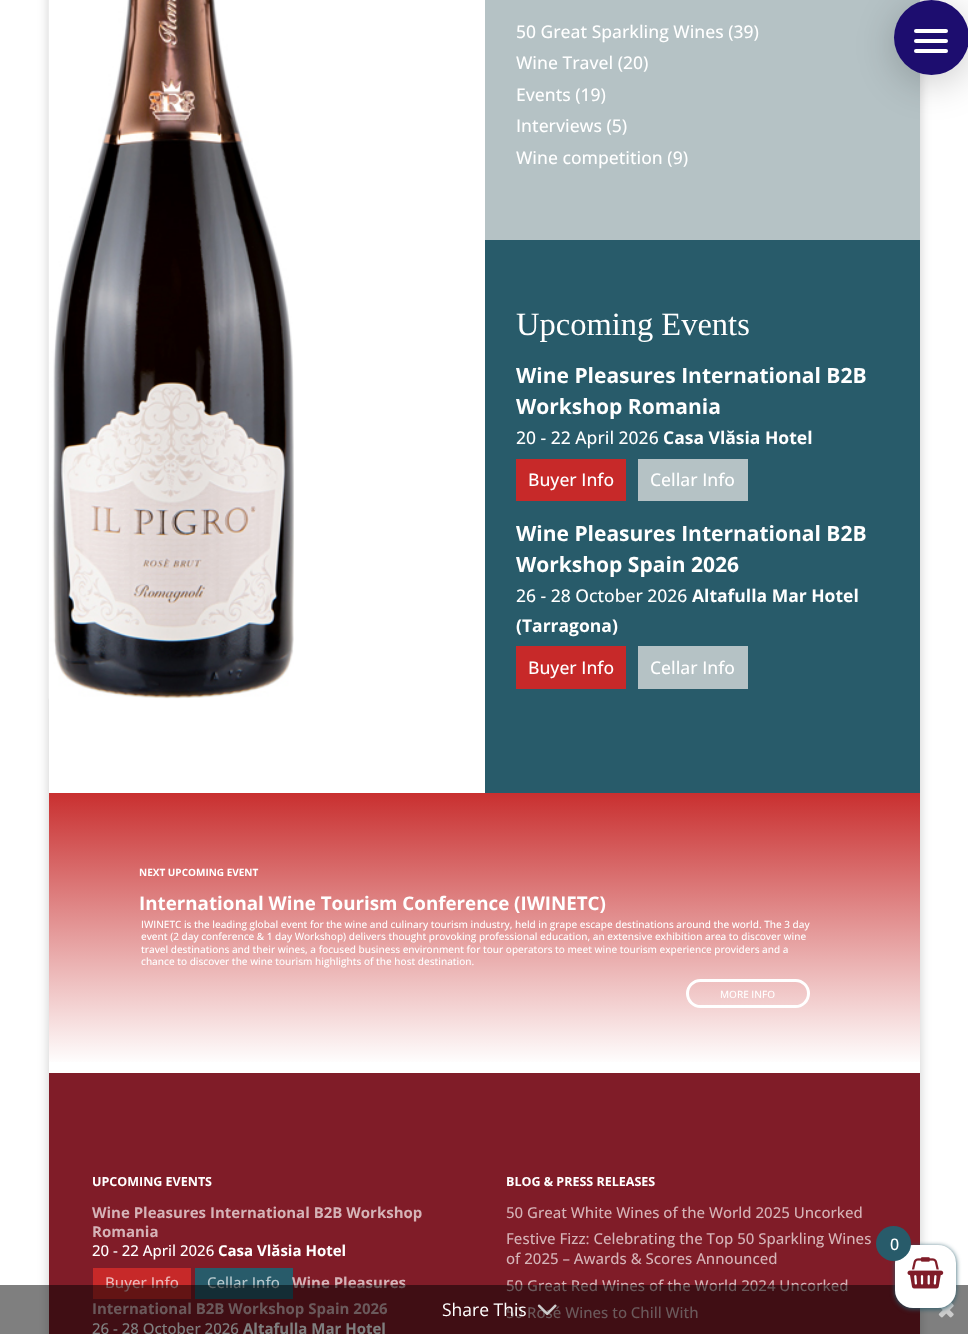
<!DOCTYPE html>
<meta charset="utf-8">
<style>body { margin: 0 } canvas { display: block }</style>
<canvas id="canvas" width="968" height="1334"></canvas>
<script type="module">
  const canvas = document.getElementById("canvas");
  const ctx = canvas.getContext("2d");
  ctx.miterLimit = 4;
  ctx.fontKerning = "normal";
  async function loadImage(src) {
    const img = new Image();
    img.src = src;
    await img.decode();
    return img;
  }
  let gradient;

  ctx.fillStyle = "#ffffff";
  ctx.fillRect(0, 0, 968, 1334);
  ctx.save();
  ctx.beginPath();
  ctx.moveTo(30, 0);
  ctx.lineTo(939, 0);
  ctx.lineTo(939, 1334);
  ctx.lineTo(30, 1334);
  ctx.closePath();
  ctx.moveTo(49, -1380);
  ctx.lineTo(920, -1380);
  ctx.lineTo(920, 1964);
  ctx.lineTo(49, 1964);
  ctx.closePath();
  ctx.clip("evenodd");
  ctx.fillStyle = "rgba(0, 0, 0, 0.2)";
  ctx.filter = "blur(6px)";
  ctx.beginPath();
  ctx.rect(49, -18, 871, 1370);
  ctx.fill();
  ctx.filter = "none";
  ctx.restore();
  ctx.drawImage(await loadImage("img1.png"), 48, 0, 246, 699);
  ctx.fillStyle = "#285b6a";
  ctx.fillRect(485, 240, 435, 553);
  ctx.fillStyle = "#b5c2c5";
  ctx.fillRect(485, 0, 435, 240);
  ctx.font = "500 17.5px Open Sans";
  ctx.fillStyle = "#ffffff";
  ctx.fillText("50 Great Sparkling Wines (39)", 516, 38);
  ctx.fillText("Wine Travel (20)", 516, 69);
  ctx.fillText("Events (19)", 516, 101);
  ctx.fillText("Interviews (5)", 516, 132);
  ctx.fillText("Wine competition (9)", 516, 164);
  ctx.font = "32.5px Liberation Serif";
  ctx.fillText("Upcoming Events", 516, 335);
  ctx.font = "bold 21px Open Sans";
  ctx.fillText("Wine Pleasures International B2B", 516, 383);
  ctx.fillText("Workshop Romania", 516, 414);
  ctx.font = "500 17.5px Open Sans";
  ctx.fillText("20 - 22 April 2026", 516, 444);
  ctx.font = "bold 17.5px Open Sans";
  ctx.fillText("Casa Vlăsia Hotel", 663, 444);
  ctx.fillStyle = "#c72929";
  ctx.fillRect(516, 459, 110, 42);
  ctx.font = "500 17.5px Open Sans";
  ctx.fillStyle = "#ffffff";
  ctx.fillText("Buyer Info", 528, 486);
  ctx.fillStyle = "#b5c2c5";
  ctx.fillRect(638, 459, 110, 42);
  ctx.fillStyle = "#ffffff";
  ctx.fillText("Cellar Info", 650, 486);
  ctx.font = "bold 21px Open Sans";
  ctx.fillText("Wine Pleasures International B2B", 516, 541);
  ctx.fillText("Workshop Spain 2026", 516, 572);
  ctx.font = "500 17.5px Open Sans";
  ctx.fillText("26 - 28 October 2026", 516, 602);
  ctx.font = "bold 17.5px Open Sans";
  ctx.fillText("Altafulla Mar Hotel", 692, 602);
  ctx.fillText("(Tarragona)", 516, 632);
  ctx.fillStyle = "#c72929";
  ctx.fillRect(516, 646, 110, 43);
  ctx.font = "500 17.5px Open Sans";
  ctx.fillStyle = "#ffffff";
  ctx.fillText("Buyer Info", 528, 674);
  ctx.fillStyle = "#b5c2c5";
  ctx.fillRect(638, 646, 110, 43);
  ctx.fillStyle = "#ffffff";
  ctx.fillText("Cellar Info", 650, 674);
  gradient = ctx.createLinearGradient(484, 784, 484, 1065);
  gradient.addColorStop(0, "#c72929");
  gradient.addColorStop(1, "#ffffff");
  ctx.fillStyle = gradient;
  ctx.fillRect(49, 793, 871, 269);
  ctx.font = "bold 10px Open Sans";
  ctx.fillStyle = "#ffffff";
  ctx.fillText("NEXT UPCOMING EVENT", 139, 876);
  ctx.font = "bold 18.75px Open Sans";
  ctx.fillText("International Wine Tourism Conference (IWINETC)", 139, 910);
  ctx.font = "500 10px Open Sans";
  ctx.fillText("IWINETC is the leading global event for the wine and culinary tourism industry, held in grape escape destinations around the world. The 3 day", 141, 928);
  ctx.fillText("event (2 day conference & 1 day Workshop) delivers thought provoking professional education, an extensive exhibition area to discover wine", 141, 940);
  ctx.fillText("travel destinations and their wines, a focused business environment for tour operators to meet wine tourism experience providers and a", 141, 953);
  ctx.fillText("chance to discover the wine tourism highlights of the host destination.", 141, 965);
  ctx.beginPath();
  ctx.roundRect(687.5, 980.5, 121, 26, 13);
  ctx.strokeStyle = "#ffffff";
  ctx.lineWidth = 3;
  ctx.stroke();
  ctx.fillText("MORE INFO", 720, 998);
  ctx.fillStyle = "#801c28";
  ctx.fillRect(49, 1073, 871, 261);
  ctx.font = "bold 12.5px Open Sans";
  ctx.fillStyle = "#ffffff";
  ctx.fillText("UPCOMING EVENTS", 92, 1186);
  ctx.font = "bold 15px Open Sans";
  ctx.fillStyle = "#d5b3b7";
  ctx.fillText("Wine Pleasures International B2B Workshop", 92, 1218);
  ctx.fillText("Romania", 92, 1237);
  ctx.font = "500 15px Open Sans";
  ctx.fillStyle = "#ffffff";
  ctx.fillText("20 - 22 April 2026", 92, 1256);
  ctx.font = "bold 15px Open Sans";
  ctx.fillText("Casa Vlăsia Hotel", 218, 1256);
  ctx.fillStyle = "#c72929";
  ctx.fillRect(93, 1268, 98, 31);
  ctx.font = "500 15px Open Sans";
  ctx.fillStyle = "#ecb8b8";
  ctx.fillText("Buyer Info", 105, 1288);
  ctx.fillStyle = "#285b6a";
  ctx.fillRect(195, 1268, 98, 31);
  ctx.fillStyle = "#b7c8cd";
  ctx.fillText("Cellar Info", 207, 1288);
  ctx.font = "bold 15px Open Sans";
  ctx.fillStyle = "#d5b3b7";
  ctx.fillText("Wine Pleasures", 292, 1288);
  ctx.fillText("International B2B Workshop Spain 2026", 92, 1314);
  ctx.font = "500 15px Open Sans";
  ctx.fillStyle = "#ffffff";
  ctx.fillText("26 - 28 October 2026", 92, 1334);
  ctx.font = "bold 15px Open Sans";
  ctx.fillText("Altafulla Mar Hotel", 243, 1334);
  ctx.font = "bold 12.5px Open Sans";
  ctx.fillText("BLOG & PRESS RELEASES", 506, 1186);
  ctx.font = "500 15px Open Sans";
  ctx.fillStyle = "#d5b3b7";
  ctx.fillText("50 Great White Wines of the World 2025 Uncorked", 506, 1218);
  ctx.fillText("Festive Fizz: Celebrating the Top 50 Sparkling Wines", 506, 1244);
  ctx.fillText("of 2025 – Awards & Scores Announced", 506, 1264);
  ctx.fillText("50 Great Red Wines of the World 2024 Uncorked", 506, 1291);
  ctx.fillText("50 Rosé Wines to Chill With", 506, 1318);
  ctx.fillStyle = "rgba(0, 0, 0, 0.2)";
  ctx.filter = "blur(19px)";
  ctx.beginPath();
  ctx.roundRect(894, 8, 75, 75, 37.5);
  ctx.fill();
  ctx.filter = "none";
  ctx.fillStyle = "#1d0d6f";
  ctx.beginPath();
  ctx.arc(931.5, 37.5, 37.5, 0, Math.PI * 2);
  ctx.fill();
  ctx.fillStyle = "#ffffff";
  ctx.beginPath();
  ctx.roundRect(914, 39, 34, 4, 2);
  ctx.fill();
  ctx.beginPath();
  ctx.roundRect(914, 29, 34, 4, 2);
  ctx.fill();
  ctx.beginPath();
  ctx.roundRect(914, 49, 34, 4, 2);
  ctx.fill();
  ctx.fillStyle = "rgba(0, 0, 0, 0.5)";
  ctx.fillRect(0, 1285, 968, 49);
  ctx.drawImage(await loadImage("img4.png"), 938, 1302, 16, 16);
  ctx.fillStyle = "#285b6a";
  ctx.filter = "blur(2.5px)";
  ctx.beginPath();
  ctx.roundRect(895, 1246, 61, 63, 18);
  ctx.fill();
  ctx.filter = "none";
  ctx.fillStyle = "#ffffff";
  ctx.beginPath();
  ctx.roundRect(895, 1245, 61, 63, 18);
  ctx.fill();
  ctx.drawImage(await loadImage("img2.png"), 907, 1257, 37, 32);
  ctx.fillStyle = "#285b6a";
  ctx.beginPath();
  ctx.arc(893.5, 1243.5, 17.5, 0, Math.PI * 2);
  ctx.fill();
  ctx.font = "500 16px Open Sans";
  ctx.fillStyle = "#ffffff";
  ctx.fillText("0", 890, 1250);
  ctx.font = "17.5px Open Sans";
  ctx.fillText("Share This", 442, 1316);
  ctx.drawImage(await loadImage("img3.png"), 537, 1304, 20, 12);
</script>
